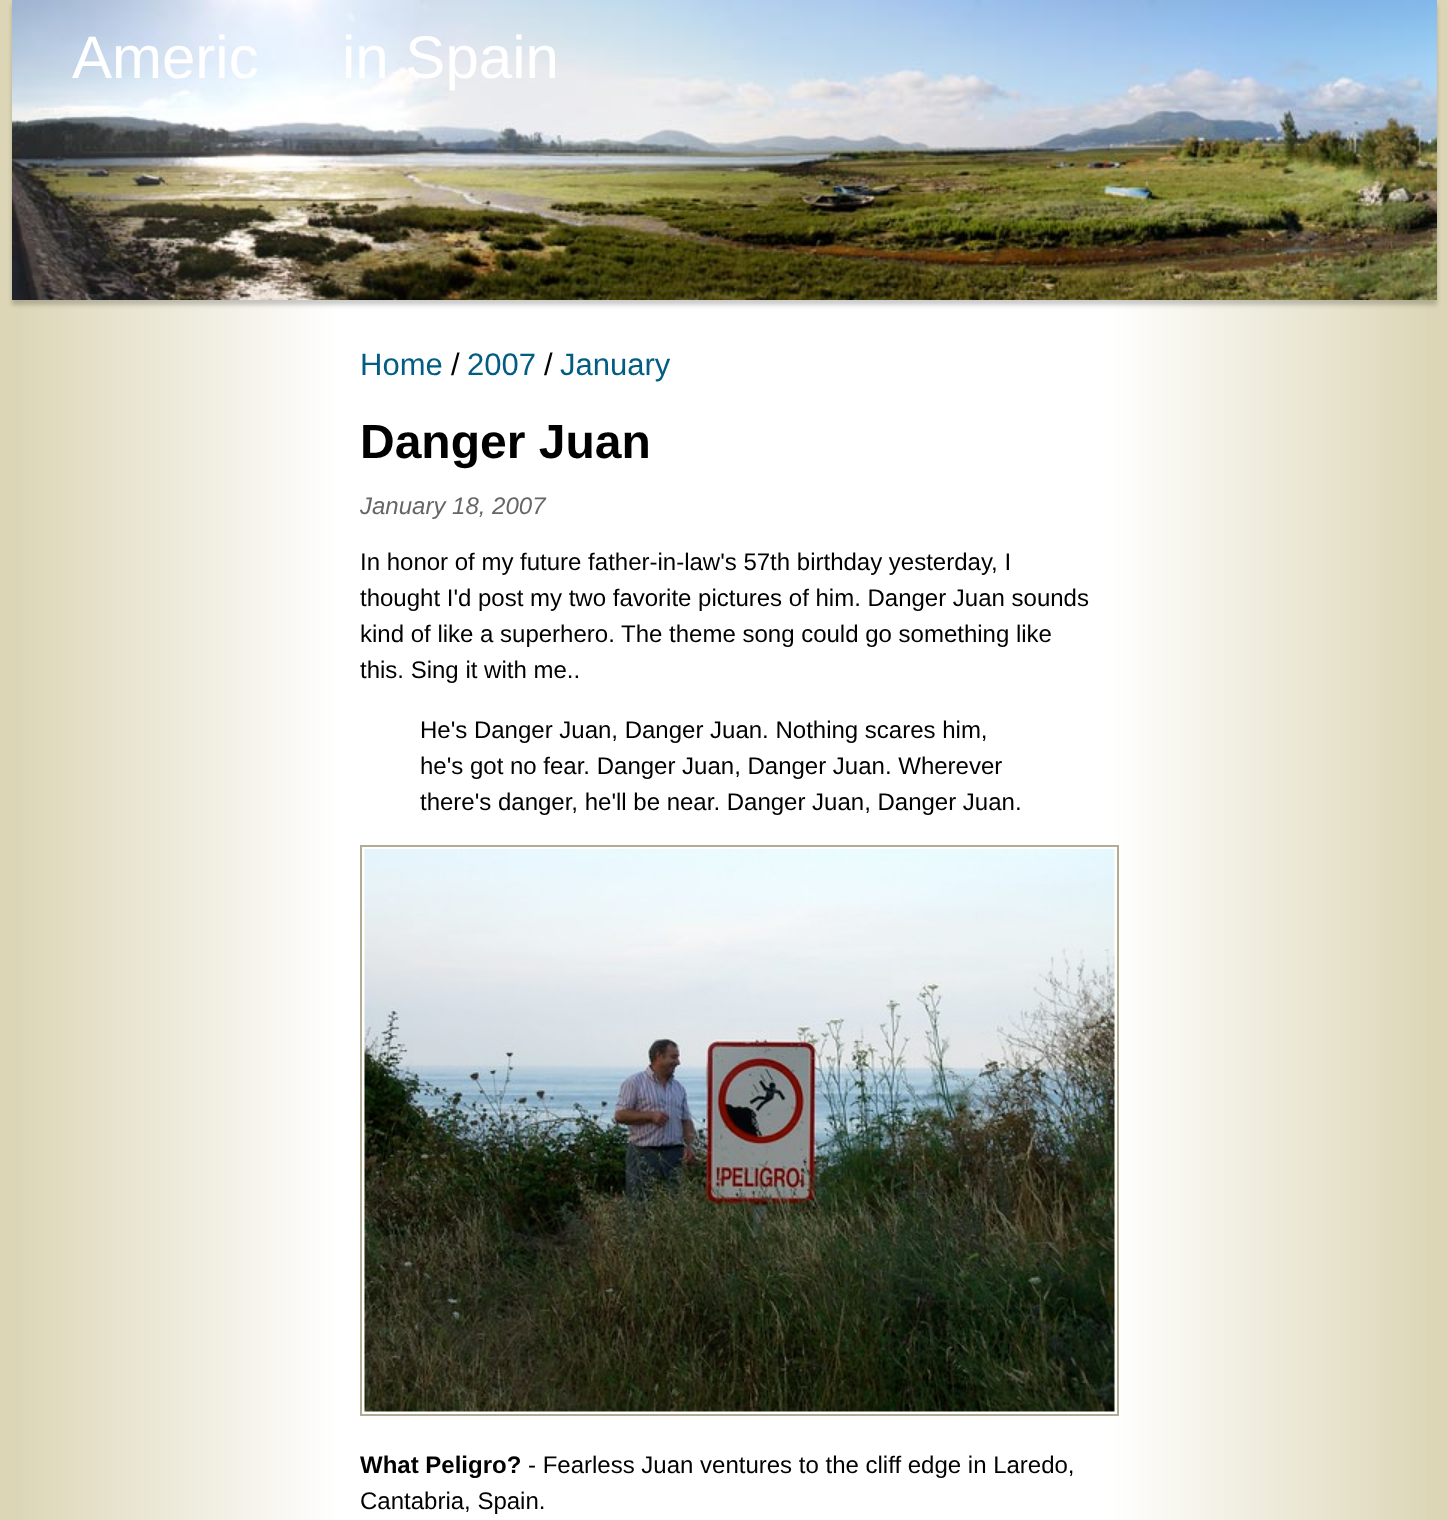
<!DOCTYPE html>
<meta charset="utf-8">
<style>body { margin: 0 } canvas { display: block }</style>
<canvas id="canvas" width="1448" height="1520"></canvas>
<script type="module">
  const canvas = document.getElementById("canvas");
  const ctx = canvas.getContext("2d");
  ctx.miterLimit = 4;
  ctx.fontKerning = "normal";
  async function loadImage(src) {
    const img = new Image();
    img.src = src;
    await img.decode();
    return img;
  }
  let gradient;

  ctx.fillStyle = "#dcd6b6";
  ctx.fillRect(0, 0, 1448, 1520);
  gradient = ctx.createLinearGradient(12, 1128, 1437, 1128);
  gradient.addColorStop(0, "#dcd6b6");
  gradient.addColorStop(0.23, "#ffffff");
  gradient.addColorStop(0.77, "#ffffff");
  gradient.addColorStop(1, "#dcd6b6");
  ctx.fillStyle = gradient;
  ctx.fillRect(23, 300, 1403, 1220);
  ctx.fillStyle = "rgba(0, 0, 0, 0.2)";
  ctx.filter = "blur(2px)";
  ctx.beginPath();
  ctx.rect(12, 5, 1425, 300);
  ctx.fill();
  ctx.filter = "none";
  ctx.drawImage(await loadImage("img1.png"), 12, 0, 1425, 300);
  ctx.font = "60px Liberation Sans";
  ctx.fillStyle = "#ffffff";
  ctx.fillText("Americ", 72, 78);
  ctx.fillText("in Spain", 342, 78);
  ctx.font = "31px Liberation Sans";
  ctx.fillStyle = "#015d82";
  ctx.fillText("Home", 360, 375);
  ctx.fillStyle = "#000000";
  ctx.fillText("/", 451, 375);
  ctx.fillStyle = "#015d82";
  ctx.fillText("2007", 467, 375);
  ctx.fillStyle = "#000000";
  ctx.fillText("/", 544, 375);
  ctx.fillStyle = "#015d82";
  ctx.fillText("January", 560, 375);
  ctx.font = "bold 48px Liberation Sans";
  ctx.fillStyle = "#000000";
  ctx.fillText("Danger Juan", 360, 458);
  ctx.font = "italic 24px Liberation Sans";
  ctx.fillStyle = "#666666";
  ctx.fillText("January 18, 2007", 360, 514);
  ctx.font = "24px Liberation Sans";
  ctx.fillStyle = "#000000";
  ctx.fillText("In honor of my future father-in-law's 57th birthday yesterday, I", 360, 570);
  ctx.fillText("thought I'd post my two favorite pictures of him. Danger Juan sounds", 360, 606);
  ctx.fillText("kind of like a superhero. The theme song could go something like", 360, 642);
  ctx.fillText("this. Sing it with me..", 360, 678);
  ctx.fillText("He's Danger Juan, Danger Juan. Nothing scares him,", 420, 738);
  ctx.fillText("he's got no fear. Danger Juan, Danger Juan. Wherever", 420, 774);
  ctx.fillText("there's danger, he'll be near. Danger Juan, Danger Juan.", 420, 810);
  ctx.strokeStyle = "#b1ac92";
  ctx.lineWidth = 2;
  ctx.strokeRect(361, 846, 757, 569);
  ctx.drawImage(await loadImage("img2.png"), 364, 849, 751, 563);
  ctx.font = "bold 24px Liberation Sans";
  ctx.fillText("What Peligro?", 360, 1473);
  ctx.font = "24px Liberation Sans";
  ctx.fillText("- Fearless Juan ventures to the cliff edge in Laredo,", 528, 1473);
  ctx.fillText("Cantabria, Spain.", 360, 1509);
</script>
